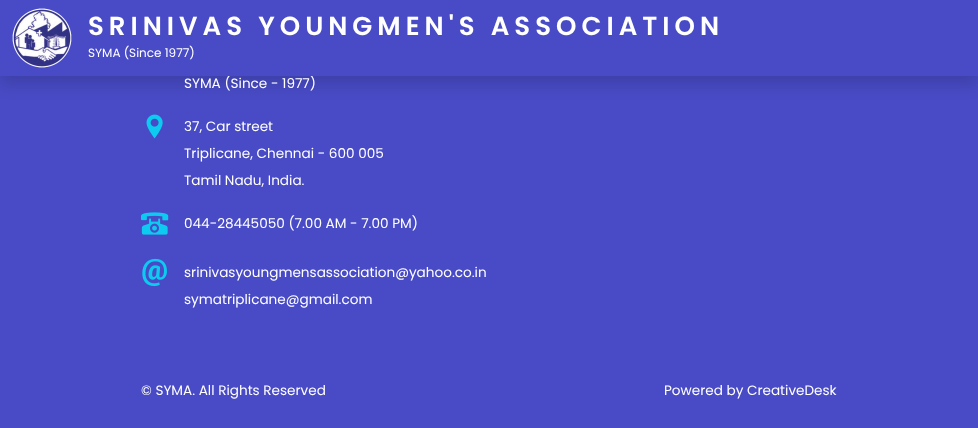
<!DOCTYPE html>
<meta charset="utf-8">
<style>body { margin: 0 } canvas { display: block }</style>
<canvas id="canvas" width="978" height="428"></canvas>
<script type="module">
  const canvas = document.getElementById("canvas");
  const ctx = canvas.getContext("2d");
  ctx.miterLimit = 4;
  ctx.fontKerning = "normal";
  async function loadImage(src) {
    const img = new Image();
    img.src = src;
    await img.decode();
    return img;
  }

  ctx.fillStyle = "#484bc5";
  ctx.fillRect(0, 0, 978, 428);
  ctx.fillStyle = "rgba(0, 0, 0, 0.15)";
  ctx.filter = "blur(8px)";
  ctx.beginPath();
  ctx.rect(0, 8, 978, 76);
  ctx.fill();
  ctx.filter = "none";
  ctx.font = "13.6px Poppins";
  ctx.fillStyle = "#ffffff";
  ctx.fillText("SYMA (Since - 1977)", 184, 88);
  ctx.fillStyle = "#484bc5";
  ctx.fillRect(0, 0, 978, 76);
  ctx.drawImage(await loadImage("img1.png"), 12, 8, 60, 60);
  ctx.letterSpacing = "5px";
  ctx.font = "600 26px Poppins";
  ctx.fillStyle = "#ffffff";
  ctx.fillText("SRINIVAS YOUNGMEN'S ASSOCIATION", 88, 35);
  ctx.letterSpacing = "0px";
  ctx.font = "12px Poppins";
  ctx.fillText("SYMA (Since 1977)", 88, 57);
  ctx.drawImage(await loadImage("img2.png"), 146, 114, 17, 25);
  ctx.font = "13.6px Poppins";
  ctx.fillText("37, Car street", 184, 131);
  ctx.fillText("Triplicane, Chennai - 600 005", 184, 158);
  ctx.fillText("Tamil Nadu, India.", 184, 185);
  ctx.drawImage(await loadImage("img3.png"), 141, 212, 28, 23);
  ctx.fillText("044-28445050 (7.00 AM - 7.00 PM)", 184, 228);
  ctx.drawImage(await loadImage("img4.png"), 142, 258, 25, 29);
  ctx.fillText("srinivasyoungmensassociation@yahoo.co.in", 184, 277);
  ctx.fillText("symatriplicane@gmail.com", 184, 304);
  ctx.fillText("© SYMA. All Rights Reserved", 141, 395);
  ctx.fillText("Powered by CreativeDesk", 664, 395);
</script>
